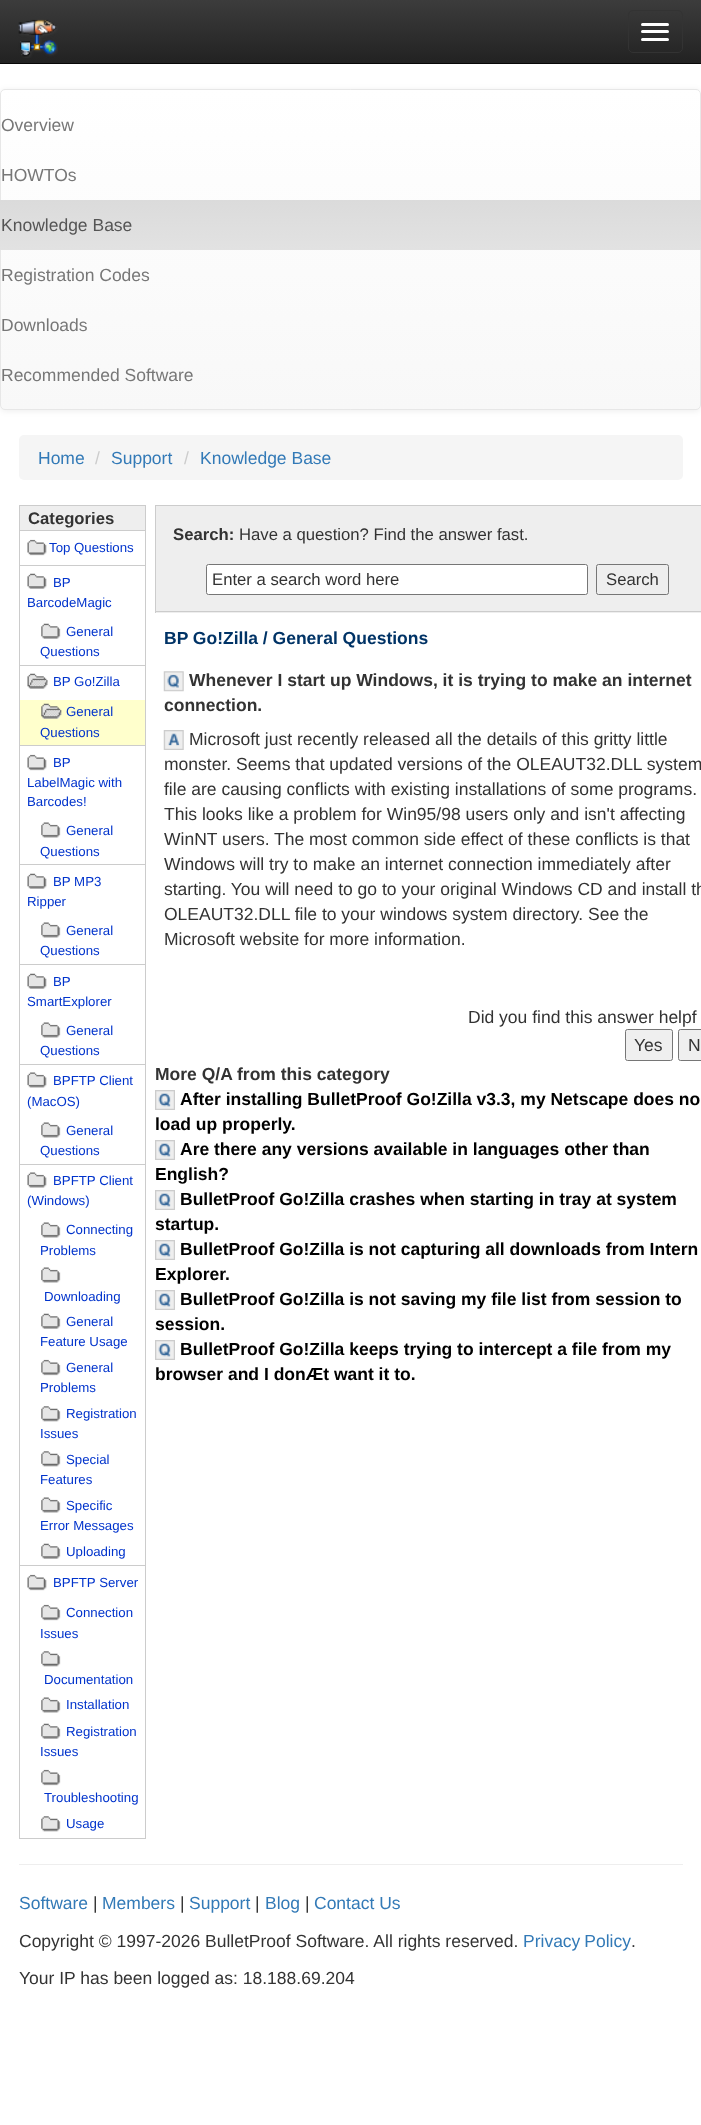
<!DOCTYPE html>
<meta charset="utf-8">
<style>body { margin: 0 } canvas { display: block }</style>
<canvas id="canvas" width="701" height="2125"></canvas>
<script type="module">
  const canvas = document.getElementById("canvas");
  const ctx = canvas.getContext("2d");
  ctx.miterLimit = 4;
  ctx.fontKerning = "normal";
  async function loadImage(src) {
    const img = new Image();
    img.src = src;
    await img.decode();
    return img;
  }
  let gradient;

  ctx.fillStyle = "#ffffff";
  ctx.fillRect(0, 0, 701, 2125);
  gradient = ctx.createLinearGradient(351, 0, 351, 63);
  gradient.addColorStop(0, "#3c3c3c");
  gradient.addColorStop(1, "#222222");
  ctx.fillStyle = gradient;
  ctx.fillRect(0, 0, 701, 63);
  ctx.fillStyle = "#080808";
  ctx.fillRect(0, 63, 701, 1);
  ctx.drawImage(await loadImage("img1.png"), 18, 19, 40, 39);
  ctx.beginPath();
  ctx.roundRect(628.5, 10.5, 54, 42, 4.5);
  ctx.strokeStyle = "#333333";
  ctx.stroke();
  ctx.fillStyle = "#ffffff";
  ctx.beginPath();
  ctx.roundRect(641, 23, 28, 3, 1.5);
  ctx.fill();
  ctx.beginPath();
  ctx.roundRect(641, 30, 28, 3, 1.5);
  ctx.fill();
  ctx.beginPath();
  ctx.roundRect(641, 38, 28, 3, 1.5);
  ctx.fill();
  ctx.fillStyle = "rgba(0, 0, 0, 0.07)";
  ctx.filter = "blur(3px)";
  ctx.beginPath();
  ctx.roundRect(0, 90, 701, 321, 5);
  ctx.fill();
  ctx.filter = "none";
  ctx.save();
  ctx.beginPath();
  ctx.roundRect(0, 89, 701, 321, 5);
  ctx.clip();
  gradient = ctx.createLinearGradient(351, 90, 351, 409);
  gradient.addColorStop(0, "#ffffff");
  gradient.addColorStop(1, "#f8f8f8");
  ctx.fillStyle = gradient;
  ctx.fillRect(0, 90, 701, 319);
  ctx.restore();
  ctx.beginPath();
  ctx.roundRect(0.5, 89.5, 700, 320, 4.5);
  ctx.strokeStyle = "#e7e7e7";
  ctx.stroke();
  ctx.font = "17.5px Liberation Sans";
  ctx.fillStyle = "#777777";
  ctx.fillText("Overview", 1, 131);
  ctx.fillText("HOWTOs", 1, 181);
  gradient = ctx.createLinearGradient(351, 200, 351, 250);
  gradient.addColorStop(0, "#dbdbdb");
  gradient.addColorStop(1, "#e2e2e2");
  ctx.fillStyle = gradient;
  ctx.fillRect(0, 200, 701, 50);
  ctx.fillStyle = "#555555";
  ctx.fillText("Knowledge Base", 1, 231);
  ctx.fillStyle = "#777777";
  ctx.fillText("Registration Codes", 1, 281);
  ctx.fillText("Downloads", 1, 331);
  ctx.fillText("Recommended Software", 1, 381);
  ctx.fillStyle = "#f5f5f5";
  ctx.beginPath();
  ctx.roundRect(19, 435, 664, 45, 5);
  ctx.fill();
  ctx.fillStyle = "#337ab7";
  ctx.fillText("Home", 38, 464);
  ctx.fillStyle = "#cccccc";
  ctx.fillText("/", 95, 464);
  ctx.fillStyle = "#337ab7";
  ctx.fillText("Support", 111, 464);
  ctx.fillStyle = "#cccccc";
  ctx.fillText("/", 184, 464);
  ctx.fillStyle = "#337ab7";
  ctx.fillText("Knowledge Base", 200, 464);
  ctx.fillStyle = "#cccccc";
  ctx.fillRect(19, 505, 127, 1);
  ctx.fillRect(145, 505, 1, 1334);
  ctx.fillRect(19, 1838, 127, 1);
  ctx.fillRect(19, 505, 1, 1334);
  ctx.fillStyle = "#eeeeee";
  ctx.fillRect(20, 506, 125, 24);
  ctx.font = "bold 16.7px Liberation Sans";
  ctx.fillStyle = "#333333";
  ctx.fillText("Categories", 28, 524);
  ctx.fillStyle = "#cccccc";
  ctx.fillRect(19, 530, 127, 1);
  ctx.drawImage(await loadImage("img2.png"), 27, 539, 20, 17);
  ctx.font = "13.25px Liberation Sans";
  ctx.fillStyle = "#0033cc";
  ctx.fillText("Top Questions", 49, 552);
  ctx.fillStyle = "#cccccc";
  ctx.fillRect(19, 565, 127, 1);
  ctx.drawImage(await loadImage("img3.png"), 27, 573, 20, 16);
  ctx.fillStyle = "#0033cc";
  ctx.fillText("BP", 53, 587);
  ctx.fillText("BarcodeMagic", 27, 607);
  ctx.drawImage(await loadImage("img4.png"), 41, 623, 20, 16);
  ctx.fillText("General", 66, 636);
  ctx.fillText("Questions", 40, 656);
  ctx.fillStyle = "#cccccc";
  ctx.fillRect(19, 665, 127, 1);
  ctx.drawImage(await loadImage("img5.png"), 27, 673, 21, 16);
  ctx.fillStyle = "#0033cc";
  ctx.fillText("BP Go!Zilla", 53, 686);
  ctx.fillStyle = "#ffffcc";
  ctx.fillRect(20, 700, 125, 45);
  ctx.drawImage(await loadImage("img6.png"), 41, 703, 21, 16);
  ctx.fillStyle = "#0033cc";
  ctx.fillText("General", 66, 716);
  ctx.fillText("Questions", 40, 737);
  ctx.fillStyle = "#cccccc";
  ctx.fillRect(19, 745, 127, 1);
  ctx.drawImage(await loadImage("img2.png"), 27, 754, 20, 17);
  ctx.fillStyle = "#0033cc";
  ctx.fillText("BP", 53, 767);
  ctx.fillText("LabelMagic with", 27, 787);
  ctx.fillText("Barcodes!", 27, 806);
  ctx.drawImage(await loadImage("img7.png"), 41, 822, 20, 16);
  ctx.fillText("General", 66, 835);
  ctx.fillText("Questions", 40, 856);
  ctx.fillStyle = "#cccccc";
  ctx.fillRect(19, 864, 127, 1);
  ctx.drawImage(await loadImage("img3.png"), 27, 873, 20, 16);
  ctx.fillStyle = "#0033cc";
  ctx.fillText("BP MP3", 53, 886);
  ctx.fillText("Ripper", 27, 906);
  ctx.drawImage(await loadImage("img7.png"), 41, 922, 20, 16);
  ctx.fillText("General", 66, 935);
  ctx.fillText("Questions", 40, 955);
  ctx.fillStyle = "#cccccc";
  ctx.fillRect(19, 964, 127, 1);
  ctx.drawImage(await loadImage("img3.png"), 27, 973, 20, 16);
  ctx.fillStyle = "#0033cc";
  ctx.fillText("BP", 53, 986);
  ctx.fillText("SmartExplorer", 27, 1006);
  ctx.drawImage(await loadImage("img8.png"), 41, 1022, 20, 16);
  ctx.fillText("General", 66, 1035);
  ctx.fillText("Questions", 40, 1055);
  ctx.fillStyle = "#cccccc";
  ctx.fillRect(19, 1064, 127, 1);
  ctx.drawImage(await loadImage("img9.png"), 27, 1072, 20, 16);
  ctx.fillStyle = "#0033cc";
  ctx.fillText("BPFTP Client", 53, 1085);
  ctx.fillText("(MacOS)", 27, 1106);
  ctx.drawImage(await loadImage("img7.png"), 41, 1122, 20, 16);
  ctx.fillText("General", 66, 1135);
  ctx.fillText("Questions", 40, 1155);
  ctx.fillStyle = "#cccccc";
  ctx.fillRect(19, 1164, 127, 1);
  ctx.drawImage(await loadImage("img10.png"), 27, 1172, 20, 16);
  ctx.fillStyle = "#0033cc";
  ctx.fillText("BPFTP Client", 53, 1185);
  ctx.fillText("(Windows)", 27, 1205);
  ctx.drawImage(await loadImage("img7.png"), 41, 1222, 20, 16);
  ctx.fillText("Connecting", 66, 1234);
  ctx.fillText("Problems", 40, 1255);
  ctx.drawImage(await loadImage("img7.png"), 41, 1267, 20, 16);
  ctx.fillText("Downloading", 44, 1301);
  ctx.drawImage(await loadImage("img4.png"), 41, 1313, 20, 16);
  ctx.fillText("General", 66, 1326);
  ctx.fillText("Feature Usage", 40, 1346);
  ctx.drawImage(await loadImage("img11.png"), 41, 1359, 20, 17);
  ctx.fillText("General", 66, 1372);
  ctx.fillText("Problems", 40, 1392);
  ctx.drawImage(await loadImage("img12.png"), 41, 1406, 20, 16);
  ctx.fillText("Registration", 66, 1418);
  ctx.fillText("Issues", 40, 1438);
  ctx.drawImage(await loadImage("img12.png"), 41, 1451, 20, 16);
  ctx.fillText("Special", 66, 1464);
  ctx.fillText("Features", 40, 1484);
  ctx.drawImage(await loadImage("img7.png"), 41, 1497, 20, 16);
  ctx.fillText("Specific", 66, 1510);
  ctx.fillText("Error Messages", 40, 1530);
  ctx.drawImage(await loadImage("img4.png"), 41, 1543, 20, 16);
  ctx.fillText("Uploading", 66, 1556);
  ctx.fillStyle = "#cccccc";
  ctx.fillRect(19, 1565, 127, 1);
  ctx.drawImage(await loadImage("img2.png"), 27, 1574, 20, 17);
  ctx.fillStyle = "#0033cc";
  ctx.fillText("BPFTP Server", 53, 1587);
  ctx.drawImage(await loadImage("img11.png"), 41, 1604, 20, 17);
  ctx.fillText("Connection", 66, 1617);
  ctx.fillText("Issues", 40, 1638);
  ctx.drawImage(await loadImage("img12.png"), 41, 1651, 20, 16);
  ctx.fillText("Documentation", 44, 1684);
  ctx.drawImage(await loadImage("img7.png"), 41, 1697, 20, 16);
  ctx.fillText("Installation", 66, 1709);
  ctx.drawImage(await loadImage("img4.png"), 41, 1723, 20, 16);
  ctx.fillText("Registration", 66, 1736);
  ctx.fillText("Issues", 40, 1756);
  ctx.drawImage(await loadImage("img11.png"), 41, 1769, 20, 17);
  ctx.fillText("Troubleshooting", 44, 1802);
  ctx.drawImage(await loadImage("img12.png"), 41, 1816, 20, 16);
  ctx.fillText("Usage", 66, 1828);
  ctx.fillStyle = "#eeeeee";
  ctx.fillRect(156, 506, 545, 107);
  ctx.fillStyle = "#cccccc";
  ctx.fillRect(155, 505, 546, 1);
  ctx.fillRect(155, 611, 546, 1);
  ctx.fillRect(155, 505, 1, 108);
  ctx.font = "bold 16.7px Liberation Sans";
  ctx.fillStyle = "#333333";
  ctx.fillText("Search:", 173, 540);
  ctx.font = "16.7px Liberation Sans";
  ctx.fillText("Have a question? Find the answer fast.", 239, 540);
  ctx.fillStyle = "#ffffff";
  ctx.beginPath();
  ctx.roundRect(206.5, 564.5, 381, 30, 2);
  ctx.fill();
  ctx.strokeStyle = "#767676";
  ctx.stroke();
  ctx.fillStyle = "#333333";
  ctx.fillText("Enter a search word here", 212, 585);
  ctx.beginPath();
  ctx.roundRect(596.5, 564.5, 72, 30, 2);
  ctx.stroke();
  ctx.fillText("Search", 606, 585);
  ctx.font = "bold 17.5px Liberation Sans";
  ctx.fillStyle = "#003366";
  ctx.fillText("BP Go!Zilla / General Questions", 164, 644);
  ctx.drawImage(await loadImage("img13.png"), 163, 671, 21, 21);
  ctx.fillStyle = "#333333";
  ctx.fillText("Whenever I start up Windows, it is trying to make an internet", 189, 686);
  ctx.fillText("connection.", 164, 711);
  ctx.drawImage(await loadImage("img14.png"), 163, 730, 21, 20);
  ctx.font = "17.5px Liberation Sans";
  ctx.fillText("Microsoft just recently released all the details of this gritty little", 189, 745);
  ctx.fillText("monster. Seems that updated versions of the OLEAUT32.DLL system", 164, 770);
  ctx.fillText("file are causing conflicts with existing installations of some programs.", 164, 795);
  ctx.fillText("This looks like a problem for Win95/98 users only and isn't affecting", 164, 820);
  ctx.fillText("WinNT users.", 164, 845);
  ctx.fillText("The most common side effect of these conflicts is that", 274, 845);
  ctx.fillText("Windows will try to make an internet connection immediately after", 164, 870);
  ctx.fillText("starting. You will need to go to your original Windows CD and install th", 164, 895);
  ctx.fillText("OLEAUT32.DLL file to your windows system directory. See the", 164, 920);
  ctx.fillText("Microsoft website for more information.", 164, 945);
  ctx.fillText("Did you find this answer helpf", 468, 1023);
  ctx.fillStyle = "#efefef";
  ctx.beginPath();
  ctx.roundRect(625.5, 1029.5, 47, 31, 2);
  ctx.fill();
  ctx.stroke();
  ctx.fillStyle = "#333333";
  ctx.fillText("Yes", 634, 1051);
  ctx.fillStyle = "#efefef";
  ctx.beginPath();
  ctx.roundRect(678.5, 1029.5, 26, 31, 2);
  ctx.fill();
  ctx.stroke();
  ctx.fillStyle = "#333333";
  ctx.fillText("N", 688, 1051);
  ctx.font = "bold 17.5px Liberation Sans";
  ctx.fillText("More Q/A from this category", 155, 1080);
  ctx.drawImage(await loadImage("img15.png"), 155, 1090, 20, 20);
  ctx.fillStyle = "#000000";
  ctx.fillText("After installing BulletProof Go!Zilla v3.3, my Netscape does no", 180, 1105);
  ctx.fillText("load up properly.", 155, 1130);
  ctx.drawImage(await loadImage("img15.png"), 155, 1140, 20, 20);
  ctx.fillText("Are there any versions available in languages other than", 180, 1155);
  ctx.fillText("English?", 155, 1180);
  ctx.drawImage(await loadImage("img15.png"), 155, 1190, 20, 20);
  ctx.fillText("BulletProof Go!Zilla crashes when starting in tray at system", 180, 1205);
  ctx.fillText("startup.", 155, 1230);
  ctx.drawImage(await loadImage("img15.png"), 155, 1240, 20, 20);
  ctx.fillText("BulletProof Go!Zilla is not capturing all downloads from Intern", 180, 1255);
  ctx.fillText("Explorer.", 155, 1280);
  ctx.drawImage(await loadImage("img15.png"), 155, 1290, 20, 20);
  ctx.fillText("BulletProof Go!Zilla is not saving my file list from session to", 180, 1305);
  ctx.fillText("session.", 155, 1330);
  ctx.drawImage(await loadImage("img15.png"), 155, 1340, 20, 20);
  ctx.fillText("BulletProof Go!Zilla keeps trying to intercept a file from my", 180, 1355);
  ctx.fillText("browser and I donÆt want it to.", 155, 1380);
  ctx.fillStyle = "#eeeeee";
  ctx.fillRect(19, 1864, 664, 1);
  ctx.font = "17.5px Liberation Sans";
  ctx.fillStyle = "#337ab7";
  ctx.fillText("Software", 19, 1909);
  ctx.fillStyle = "#333333";
  ctx.fillText("|", 93, 1909);
  ctx.fillStyle = "#337ab7";
  ctx.fillText("Members", 102, 1909);
  ctx.fillStyle = "#333333";
  ctx.fillText("|", 180, 1909);
  ctx.fillStyle = "#337ab7";
  ctx.fillText("Support", 189, 1909);
  ctx.fillStyle = "#333333";
  ctx.fillText("|", 255, 1909);
  ctx.fillStyle = "#337ab7";
  ctx.fillText("Blog", 265, 1909);
  ctx.fillStyle = "#333333";
  ctx.fillText("|", 305, 1909);
  ctx.fillStyle = "#337ab7";
  ctx.fillText("Contact Us", 314, 1909);
  ctx.fillStyle = "#333333";
  ctx.fillText("Copyright © 1997-2026 BulletProof Software. All rights reserved.", 19, 1947);
  ctx.wordSpacing = "-1px";
  ctx.fillStyle = "#337ab7";
  ctx.fillText("Privacy Policy", 523, 1947);
  ctx.wordSpacing = "0px";
  ctx.fillStyle = "#333333";
  ctx.fillText(".", 631, 1947);
  ctx.fillText("Your IP has been logged as: 18.188.69.204", 19, 1984);
</script>
